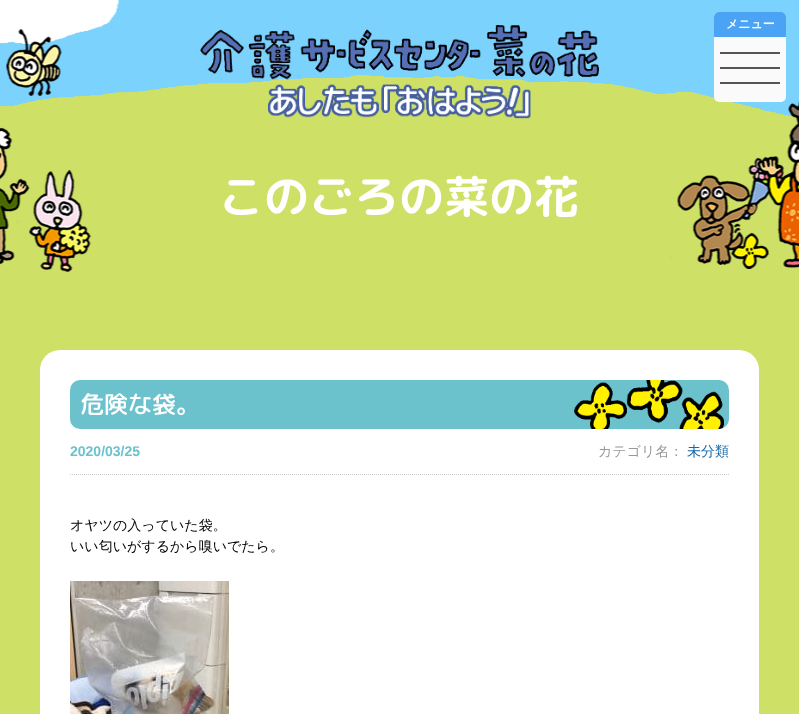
<!DOCTYPE html>
<meta charset="utf-8">
<style>body { margin: 0 } canvas { display: block }</style>
<canvas id="canvas" width="799" height="714"></canvas>
<script type="module">
  const canvas = document.getElementById("canvas");
  const ctx = canvas.getContext("2d");
  ctx.miterLimit = 4;
  ctx.fontKerning = "normal";
  async function loadImage(src) {
    const img = new Image();
    img.src = src;
    await img.decode();
    return img;
  }

  ctx.fillStyle = "#cee066";
  ctx.fillRect(0, 0, 799, 714);
  ctx.drawImage(await loadImage("img1.png"), 0, 0, 799, 272);
  ctx.fillStyle = "#fafafa";
  ctx.beginPath();
  ctx.roundRect(714, 12, 72, 90, 5);
  ctx.fill();
  ctx.fillStyle = "#4aa3f5";
  ctx.beginPath();
  ctx.roundRect(714, 12, 72, 25, [5, 5, 0, 0]);
  ctx.fill();
  ctx.font = "bold 12px WenQuanYi Zen Hei";
  ctx.fillStyle = "#ffffff";
  ctx.fillText("メニュー", 726, 28);
  ctx.fillStyle = "#555555";
  ctx.fillRect(720, 52, 60, 2);
  ctx.fillRect(720, 67, 60, 2);
  ctx.fillRect(720, 82, 60, 2);
  ctx.drawImage(await loadImage("img2.png"), 200, 25, 399, 94);
  ctx.font = "bold 45px 'Rounded Mplus 1c Bold'";
  ctx.fillStyle = "#ffffff";
  ctx.fillText("このごろの菜の花", 219, 213);
  ctx.beginPath();
  ctx.roundRect(40, 350, 719, 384, 20);
  ctx.fill();
  ctx.fillStyle = "#6bc1cc";
  ctx.beginPath();
  ctx.roundRect(70, 380, 659, 49, 10);
  ctx.fill();
  ctx.drawImage(await loadImage("img3.png"), 574, 380, 150, 49);
  ctx.font = "500 24px 'Rounded Mplus 1c'";
  ctx.fillStyle = "#ffffff";
  ctx.fillText("危険な袋。", 80, 413);
  ctx.beginPath();
  ctx.moveTo(70, 474.5);
  ctx.lineTo(729, 474.5);
  ctx.strokeStyle = "#cccccc";
  ctx.setLineDash([1, 1]);
  ctx.stroke();
  ctx.font = "bold 14px Liberation Sans";
  ctx.fillStyle = "#6bc1cc";
  ctx.fillText("2020/03/25", 70, 456);
  ctx.font = "500 14px WenQuanYi Zen Hei";
  ctx.fillStyle = "#999999";
  ctx.fillText("カテゴリ名：", 598, 456);
  ctx.fillStyle = "#1268ab";
  ctx.fillText("未分類", 687, 456);
  ctx.fillStyle = "#000000";
  ctx.fillText("オヤツの入っていた袋。", 70, 530);
  ctx.fillText("いい匂いがするから嗅いでたら。", 70, 551);
  ctx.drawImage(await loadImage("img4.png"), 70, 581, 159, 133);
</script>
